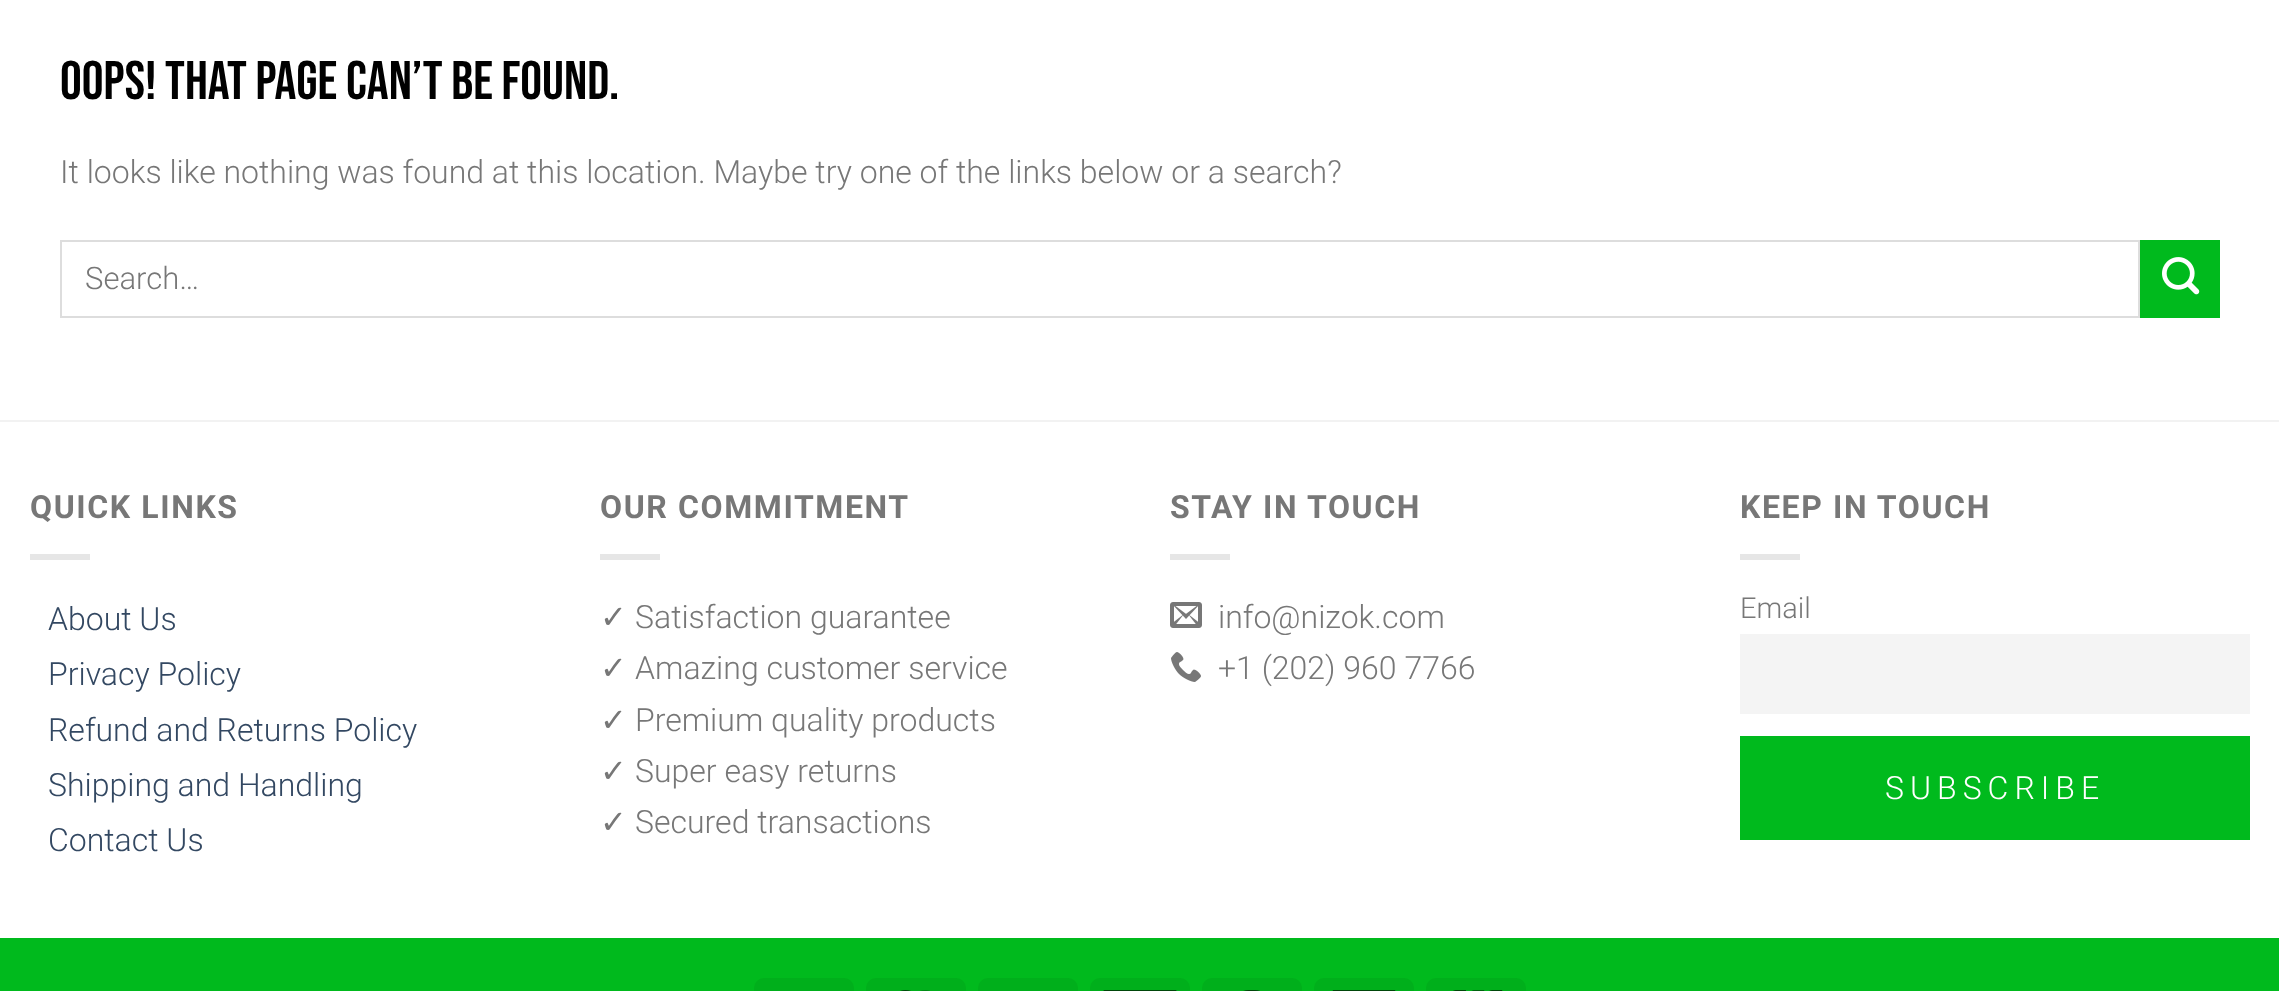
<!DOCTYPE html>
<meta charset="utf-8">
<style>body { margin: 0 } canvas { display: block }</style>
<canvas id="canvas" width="2279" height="991"></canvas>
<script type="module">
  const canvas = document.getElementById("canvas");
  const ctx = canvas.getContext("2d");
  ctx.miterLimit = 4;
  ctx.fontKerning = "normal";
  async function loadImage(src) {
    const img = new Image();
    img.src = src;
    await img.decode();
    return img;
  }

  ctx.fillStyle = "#ffffff";
  ctx.fillRect(0, 0, 2279, 991);
  ctx.font = "54.4px Bebas Neue";
  ctx.fillStyle = "#000000";
  ctx.fillText("Oops! That page can’t be found.", 60, 99);
  ctx.font = "300 32px Roboto";
  ctx.fillStyle = "#777777";
  ctx.fillText("It looks like nothing was found at this location. Maybe try one of the links below or a search?", 60, 183);
  ctx.strokeStyle = "#dddddd";
  ctx.lineWidth = 2;
  ctx.strokeRect(61, 241, 2078, 76);
  ctx.font = "300 31px Roboto";
  ctx.fillText("Search…", 85, 289);
  ctx.fillStyle = "#00ba1d";
  ctx.fillRect(2140, 240, 80, 78);
  ctx.drawImage(await loadImage("img1.png"), 2162, 257, 38, 38);
  ctx.fillStyle = "#f2f2f2";
  ctx.fillRect(0, 420, 2279, 2);
  ctx.letterSpacing = "1.6px";
  ctx.font = "bold 32px Roboto";
  ctx.fillStyle = "#777777";
  ctx.fillText("QUICK LINKS", 30, 518);
  ctx.fillStyle = "#e6e6e6";
  ctx.fillRect(30, 554, 60, 6);
  ctx.letterSpacing = "0px";
  ctx.font = "300 32px Roboto";
  ctx.fillStyle = "#334862";
  ctx.fillText("About Us", 48, 630);
  ctx.fillText("Privacy Policy", 48, 685);
  ctx.fillText("Refund and Returns Policy", 48, 741);
  ctx.fillText("Shipping and Handling", 48, 796);
  ctx.fillText("Contact Us", 48, 851);
  ctx.letterSpacing = "1.6px";
  ctx.font = "bold 32px Roboto";
  ctx.fillStyle = "#777777";
  ctx.fillText("OUR COMMITMENT", 600, 518);
  ctx.fillStyle = "#e6e6e6";
  ctx.fillRect(600, 554, 60, 6);
  ctx.letterSpacing = "0px";
  ctx.font = "32px DejaVu Sans";
  ctx.fillStyle = "#777777";
  ctx.fillText("✓", 600, 628);
  ctx.font = "300 32px Roboto";
  ctx.fillText("Satisfaction guarantee", 635, 628);
  ctx.font = "32px DejaVu Sans";
  ctx.fillText("✓", 600, 679);
  ctx.font = "300 32px Roboto";
  ctx.fillText("Amazing customer service", 635, 679);
  ctx.font = "32px DejaVu Sans";
  ctx.fillText("✓", 600, 731);
  ctx.font = "300 32px Roboto";
  ctx.fillText("Premium quality products", 635, 731);
  ctx.font = "32px DejaVu Sans";
  ctx.fillText("✓", 600, 782);
  ctx.font = "300 32px Roboto";
  ctx.fillText("Super easy returns", 635, 782);
  ctx.font = "32px DejaVu Sans";
  ctx.fillText("✓", 600, 833);
  ctx.font = "300 32px Roboto";
  ctx.fillText("Secured transactions", 635, 833);
  ctx.letterSpacing = "1.6px";
  ctx.font = "bold 32px Roboto";
  ctx.fillText("STAY IN TOUCH", 1170, 518);
  ctx.fillStyle = "#e6e6e6";
  ctx.fillRect(1170, 554, 60, 6);
  ctx.drawImage(await loadImage("img2.png"), 1170, 602, 32, 26);
  ctx.letterSpacing = "0px";
  ctx.font = "300 32px Roboto";
  ctx.fillStyle = "#777777";
  ctx.fillText("info@nizok.com", 1218, 628);
  ctx.drawImage(await loadImage("img3.png"), 1171, 652, 30, 30);
  ctx.fillText("+1 (202) 960 7766", 1218, 679);
  ctx.letterSpacing = "1.6px";
  ctx.font = "bold 32px Roboto";
  ctx.fillText("KEEP IN TOUCH", 1740, 518);
  ctx.fillStyle = "#e6e6e6";
  ctx.fillRect(1740, 554, 60, 6);
  ctx.letterSpacing = "0px";
  ctx.font = "300 29px Roboto";
  ctx.fillStyle = "#777777";
  ctx.fillText("Email", 1740, 618);
  ctx.fillStyle = "#f4f4f4";
  ctx.fillRect(1740, 634, 510, 80);
  ctx.fillStyle = "#00ba1d";
  ctx.fillRect(1740, 736, 510, 104);
  ctx.letterSpacing = "6px";
  ctx.font = "300 32px Roboto";
  ctx.fillStyle = "#ffffff";
  ctx.fillText("SUBSCRIBE", 1885, 799);
  ctx.fillStyle = "#00ba1d";
  ctx.fillRect(0, 938, 2279, 53);
  ctx.fillStyle = "#00af1b";
  ctx.beginPath();
  ctx.roundRect(754, 978, 100, 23, 10);
  ctx.fill();
  ctx.beginPath();
  ctx.roundRect(866, 978, 100, 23, 10);
  ctx.fill();
  ctx.drawImage(await loadImage("img4.png"), 900, 990, 30, 1);
  ctx.beginPath();
  ctx.roundRect(978, 978, 100, 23, 10);
  ctx.fill();
  ctx.beginPath();
  ctx.roundRect(1090, 978, 100, 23, 10);
  ctx.fill();
  ctx.drawImage(await loadImage("img5.png"), 1103, 990, 74, 1);
  ctx.beginPath();
  ctx.roundRect(1202, 978, 100, 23, 10);
  ctx.fill();
  ctx.drawImage(await loadImage("img6.png"), 1243, 990, 17, 1);
  ctx.beginPath();
  ctx.roundRect(1314, 978, 100, 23, 10);
  ctx.fill();
  ctx.drawImage(await loadImage("img7.png"), 1332, 990, 64, 1);
  ctx.beginPath();
  ctx.roundRect(1426, 978, 100, 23, 10);
  ctx.fill();
  ctx.drawImage(await loadImage("img8.png"), 1453, 990, 50, 1);
</script>
